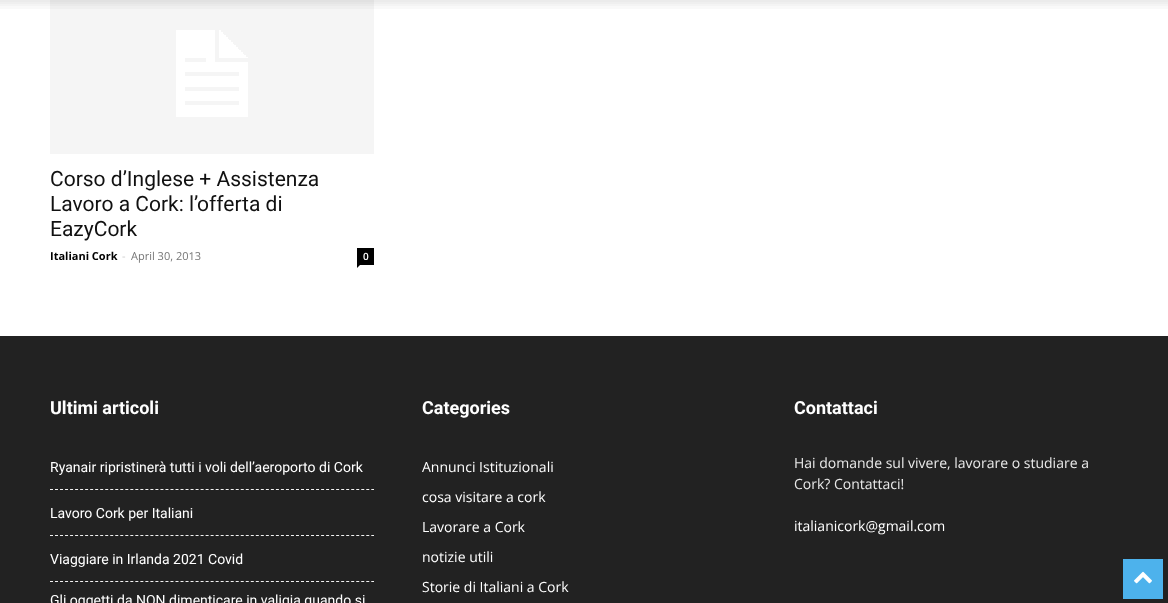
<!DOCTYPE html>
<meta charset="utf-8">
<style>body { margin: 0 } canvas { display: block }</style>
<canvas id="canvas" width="1168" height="603"></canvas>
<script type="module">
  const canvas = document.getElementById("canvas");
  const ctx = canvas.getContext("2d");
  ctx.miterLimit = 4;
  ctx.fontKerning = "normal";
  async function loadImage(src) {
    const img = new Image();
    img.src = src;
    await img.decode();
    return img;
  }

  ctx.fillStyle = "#ffffff";
  ctx.fillRect(0, 0, 1168, 603);
  ctx.drawImage(await loadImage("img2.png"), 50, 0, 324, 154);
  ctx.drawImage(await loadImage("img1.png"), 0, 0, 1168, 9);
  ctx.font = "21px Roboto";
  ctx.fillStyle = "#111111";
  ctx.fillText("Corso d’Inglese + Assistenza", 50, 186);
  ctx.fillText("Lavoro a Cork: l’offerta di", 50, 211);
  ctx.fillText("EazyCork", 50, 236);
  ctx.font = "bold 11px Open Sans";
  ctx.fillStyle = "#000000";
  ctx.fillText("Italiani Cork", 50, 260);
  ctx.font = "11px Open Sans";
  ctx.fillStyle = "#cccccc";
  ctx.fillText("-", 122, 260);
  ctx.fillStyle = "#767676";
  ctx.fillText("April 30, 2013", 131, 260);
  ctx.fillStyle = "#000000";
  ctx.fillRect(357, 248, 17, 17);
  ctx.font = "600 10px Open Sans";
  ctx.fillStyle = "#ffffff";
  ctx.fillText("0", 363, 260);
  ctx.fillStyle = "#000000";
  ctx.beginPath();
  ctx.moveTo(357, 265);
  ctx.lineTo(360, 265);
  ctx.lineTo(357, 268);
  ctx.closePath();
  ctx.fill();
  ctx.fillStyle = "#222222";
  ctx.fillRect(0, 336, 1168, 267);
  ctx.font = "bold 18px Roboto";
  ctx.fillStyle = "#ffffff";
  ctx.fillText("Ultimi articoli", 50, 414);
  ctx.beginPath();
  ctx.moveTo(50, 489.5);
  ctx.lineTo(374, 489.5);
  ctx.strokeStyle = "#f1f1f1";
  ctx.setLineDash([3, 2.02]);
  ctx.stroke();
  ctx.font = "14px Roboto";
  ctx.fillText("Ryanair ripristinerà tutti i voli dell’aeroporto di Cork", 50, 472);
  ctx.beginPath();
  ctx.moveTo(50, 535.5);
  ctx.lineTo(374, 535.5);
  ctx.stroke();
  ctx.fillText("Lavoro Cork per Italiani", 50, 518);
  ctx.beginPath();
  ctx.moveTo(50, 581.5);
  ctx.lineTo(374, 581.5);
  ctx.stroke();
  ctx.fillText("Viaggiare in Irlanda 2021 Covid", 50, 564);
  ctx.fillText("Gli oggetti da NON dimenticare in valigia quando si", 50, 605);
  ctx.font = "bold 18px Roboto";
  ctx.fillText("Categories", 422, 414);
  ctx.font = "14px Open Sans";
  ctx.fillText("Annunci Istituzionali", 422, 472);
  ctx.fillText("cosa visitare a cork", 422, 502);
  ctx.fillText("Lavorare a Cork", 422, 532);
  ctx.fillText("notizie utili", 422, 562);
  ctx.fillText("Storie di Italiani a Cork", 422, 592);
  ctx.font = "bold 18px Roboto";
  ctx.fillText("Contattaci", 794, 414);
  ctx.font = "14px Open Sans";
  ctx.fillStyle = "#eaeaea";
  ctx.fillText("Hai domande sul vivere, lavorare o studiare a", 794, 468);
  ctx.fillText("Cork? Contattaci!", 794, 489);
  ctx.fillStyle = "#ffffff";
  ctx.fillText("italianicork@gmail.com", 794, 531);
  ctx.fillStyle = "#4db2ec";
  ctx.fillRect(1123, 559, 40, 40);
  ctx.drawImage(await loadImage("img3.png"), 1134, 571, 18, 13);
</script>
